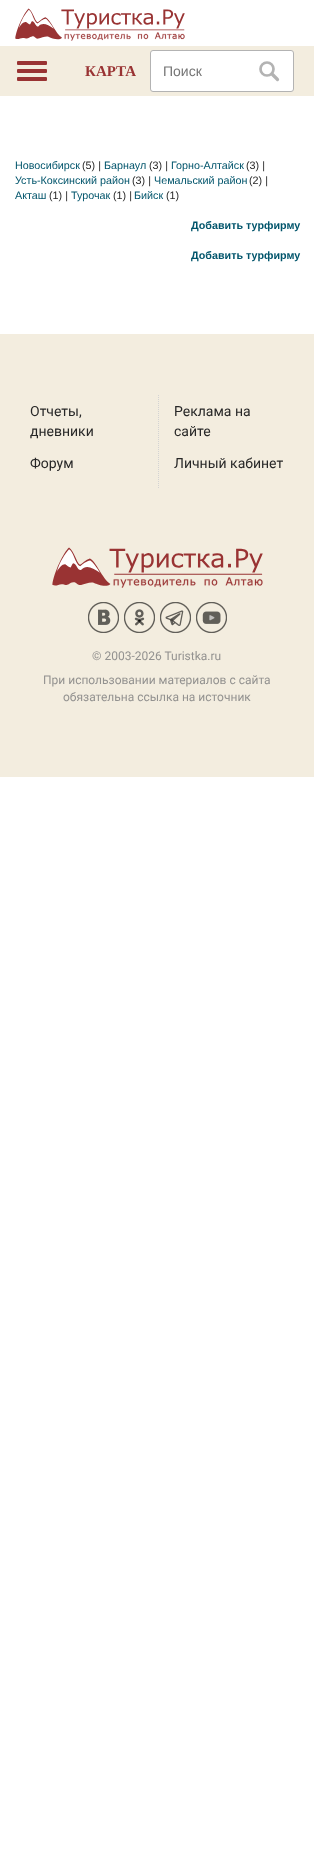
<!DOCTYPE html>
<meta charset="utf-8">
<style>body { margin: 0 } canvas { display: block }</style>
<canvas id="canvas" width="314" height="1859"></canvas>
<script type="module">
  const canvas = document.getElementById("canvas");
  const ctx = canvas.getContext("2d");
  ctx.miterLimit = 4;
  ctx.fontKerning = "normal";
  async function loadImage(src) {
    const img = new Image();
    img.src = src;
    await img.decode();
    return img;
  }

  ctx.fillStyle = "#ffffff";
  ctx.fillRect(0, 0, 314, 1859);
  ctx.drawImage(await loadImage("img1.png"), 15, 8, 170, 33);
  ctx.fillStyle = "#f3eddf";
  ctx.fillRect(0, 46, 314, 50);
  ctx.fillStyle = "#993333";
  ctx.beginPath();
  ctx.roundRect(17, 61, 30, 4, 1);
  ctx.fill();
  ctx.beginPath();
  ctx.roundRect(17, 69, 30, 4, 1);
  ctx.fill();
  ctx.beginPath();
  ctx.roundRect(17, 77, 30, 4, 1);
  ctx.fill();
  ctx.font = "bold 15px Liberation Serif";
  ctx.fillText("КАРТА", 85, 76);
  ctx.fillStyle = "#ffffff";
  ctx.beginPath();
  ctx.roundRect(150.5, 50.5, 143, 41, 2.5);
  ctx.fill();
  ctx.strokeStyle = "#b3b3b3";
  ctx.stroke();
  ctx.font = "14px Liberation Sans";
  ctx.fillStyle = "#757575";
  ctx.fillText("Поиск", 163, 76);
  ctx.beginPath();
  ctx.arc(267, 69, 6.5, 0, Math.PI * 2);
  ctx.lineWidth = 2.7;
  ctx.stroke();
  ctx.beginPath();
  ctx.moveTo(277.5, 79.5);
  ctx.lineTo(272, 74);
  ctx.lineWidth = 3.2;
  ctx.lineCap = "round";
  ctx.lineJoin = "round";
  ctx.stroke();
  ctx.font = "10.75px Liberation Sans";
  ctx.fillStyle = "#00546b";
  ctx.fillText("Новосибирск", 15, 169);
  ctx.fillStyle = "#272727";
  ctx.fillText("(5) |", 82, 169);
  ctx.fillStyle = "#00546b";
  ctx.fillText("Барнаул", 104, 169);
  ctx.fillStyle = "#272727";
  ctx.fillText("(3) |", 149, 169);
  ctx.fillStyle = "#00546b";
  ctx.fillText("Горно-Алтайск", 171, 169);
  ctx.fillStyle = "#272727";
  ctx.fillText("(3) |", 246, 169);
  ctx.fillStyle = "#00546b";
  ctx.fillText("Усть-Коксинский район", 15, 184);
  ctx.fillStyle = "#272727";
  ctx.fillText("(3) |", 132, 184);
  ctx.fillStyle = "#00546b";
  ctx.fillText("Чемальский район", 154, 184);
  ctx.fillStyle = "#272727";
  ctx.fillText("(2) |", 249, 184);
  ctx.fillStyle = "#00546b";
  ctx.fillText("Акташ", 15, 199);
  ctx.fillStyle = "#272727";
  ctx.fillText("(1) |", 49, 199);
  ctx.fillStyle = "#00546b";
  ctx.fillText("Турочак", 71, 199);
  ctx.fillStyle = "#272727";
  ctx.fillText("(1) |", 113, 199);
  ctx.fillStyle = "#00546b";
  ctx.fillText("Бийск", 134, 199);
  ctx.fillStyle = "#272727";
  ctx.fillText("(1)", 166, 199);
  ctx.font = "bold 10.75px Liberation Sans";
  ctx.fillStyle = "#00546b";
  ctx.fillText("Добавить турфирму", 191, 229);
  ctx.fillText("Добавить турфирму", 191, 259);
  ctx.fillStyle = "#f3eddf";
  ctx.fillRect(0, 334, 314, 443);
  ctx.beginPath();
  ctx.moveTo(158.5, 395);
  ctx.lineTo(158.5, 489);
  ctx.strokeStyle = "#d3d3d3";
  ctx.lineWidth = 1;
  ctx.lineCap = "butt";
  ctx.lineJoin = "miter";
  ctx.setLineDash([1, 1]);
  ctx.stroke();
  ctx.font = "14px Roboto";
  ctx.fillStyle = "#272727";
  ctx.fillText("Отчеты,", 30, 416);
  ctx.fillText("дневники", 30, 436);
  ctx.fillText("Форум", 30, 468);
  ctx.fillText("Реклама на", 174, 416);
  ctx.fillText("сайте", 174, 436);
  ctx.fillText("Личный кабинет", 174, 468);
  ctx.drawImage(await loadImage("img2.png"), 52, 547, 211, 41);
  ctx.drawImage(await loadImage("img3.png"), 88, 602, 31, 31);
  ctx.drawImage(await loadImage("img4.png"), 124, 602, 31, 31);
  ctx.drawImage(await loadImage("img5.png"), 160, 602, 31, 31);
  ctx.drawImage(await loadImage("img6.png"), 196, 602, 31, 31);
  ctx.font = "12px Roboto";
  ctx.fillStyle = "#939290";
  ctx.fillText("© 2003-2026 Turistka.ru", 92, 660);
  ctx.fillText("При использовании материалов с сайта", 43, 684);
  ctx.fillText("обязательна ссылка на источник", 63, 701);
</script>
